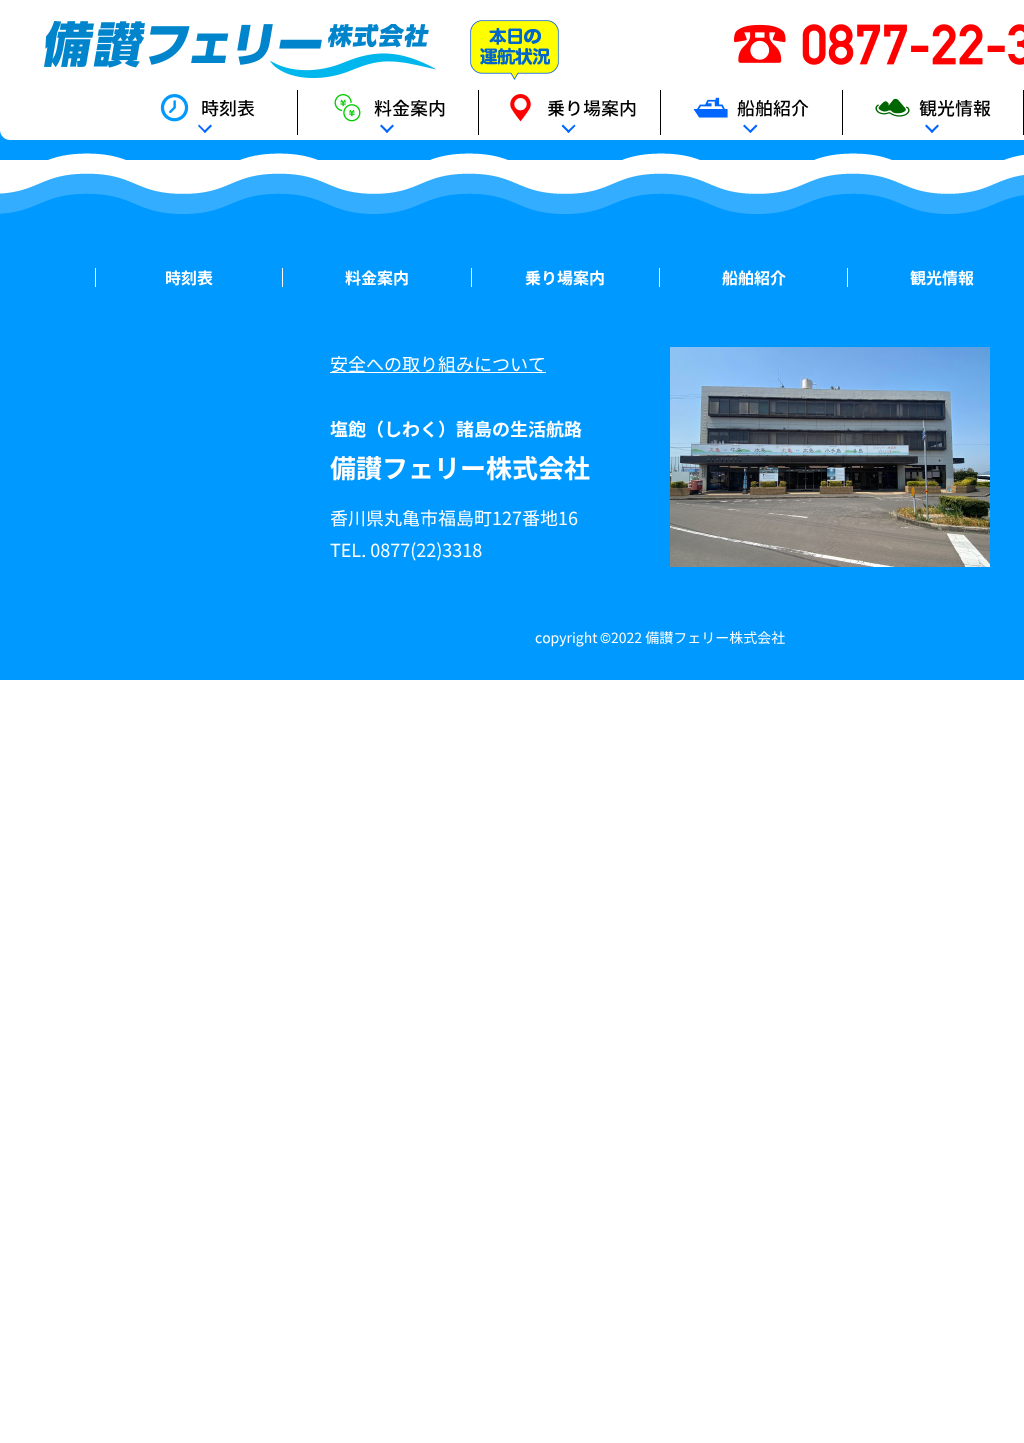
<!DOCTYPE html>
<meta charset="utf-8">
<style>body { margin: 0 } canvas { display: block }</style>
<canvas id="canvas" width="1024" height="1443"></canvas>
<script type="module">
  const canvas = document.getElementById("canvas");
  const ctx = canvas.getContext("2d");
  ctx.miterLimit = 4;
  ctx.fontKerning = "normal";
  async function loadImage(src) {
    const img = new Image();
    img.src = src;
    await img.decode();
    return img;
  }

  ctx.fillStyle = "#ffffff";
  ctx.fillRect(0, 0, 1024, 1443);
  ctx.fillStyle = "#0099ff";
  ctx.fillRect(0, 130, 1024, 30);
  ctx.fillStyle = "#ffffff";
  ctx.beginPath();
  ctx.moveTo(0, 0);
  ctx.lineTo(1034, 0);
  ctx.lineTo(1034, 130);
  ctx.bezierCurveTo(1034, 135.5, 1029.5, 140, 1024, 140);
  ctx.lineTo(10, 140);
  ctx.bezierCurveTo(4.5, 140, 0, 135.5, 0, 130);
  ctx.closePath();
  ctx.fill();
  ctx.drawImage(await loadImage("img1.png"), 44, 21, 392, 57);
  ctx.drawImage(await loadImage("img2.png"), 470, 20, 89, 60);
  ctx.drawImage(await loadImage("img3.png"), 734, 24, 290, 41);
  ctx.drawImage(await loadImage("img4.png"), 160, 94, 29, 28);
  ctx.font = "500 18px Noto Sans JP";
  ctx.fillStyle = "#000000";
  ctx.fillText("時刻表", 201, 115);
  ctx.fillStyle = "#0066ff";
  ctx.beginPath();
  ctx.moveTo(203.5, 131.5);
  ctx.lineTo(210.5, 124.5);
  ctx.lineTo(212, 126);
  ctx.lineTo(205, 133);
  ctx.closePath();
  ctx.fill();
  ctx.beginPath();
  ctx.moveTo(198, 126);
  ctx.lineTo(199, 124.5);
  ctx.lineTo(206, 131.5);
  ctx.lineTo(205, 133);
  ctx.closePath();
  ctx.fill();
  ctx.fillStyle = "#000000";
  ctx.fillRect(297, 90, 1, 45);
  ctx.drawImage(await loadImage("img5.png"), 334, 94, 27, 28);
  ctx.fillText("料金案内", 374, 115);
  ctx.fillStyle = "#0066ff";
  ctx.beginPath();
  ctx.moveTo(385.5, 131.5);
  ctx.lineTo(392.5, 124.5);
  ctx.lineTo(394, 126);
  ctx.lineTo(387, 133);
  ctx.closePath();
  ctx.fill();
  ctx.beginPath();
  ctx.moveTo(380, 126);
  ctx.lineTo(381.5, 124.5);
  ctx.lineTo(388.5, 131.5);
  ctx.lineTo(387, 133);
  ctx.closePath();
  ctx.fill();
  ctx.fillStyle = "#000000";
  ctx.fillRect(478, 90, 1, 45);
  ctx.drawImage(await loadImage("img6.png"), 510, 94, 21, 28);
  ctx.fillText("乗り場案内", 547, 115);
  ctx.fillStyle = "#0066ff";
  ctx.beginPath();
  ctx.moveTo(567, 131.5);
  ctx.lineTo(574.5, 124.5);
  ctx.lineTo(575.5, 126);
  ctx.lineTo(568.5, 133);
  ctx.closePath();
  ctx.fill();
  ctx.beginPath();
  ctx.moveTo(561.5, 126);
  ctx.lineTo(563, 124.5);
  ctx.lineTo(570, 131.5);
  ctx.lineTo(568.5, 133);
  ctx.closePath();
  ctx.fill();
  ctx.fillStyle = "#000000";
  ctx.fillRect(660, 90, 1, 45);
  ctx.drawImage(await loadImage("img7.png"), 693, 97, 35, 21);
  ctx.fillText("船舶紹介", 737, 115);
  ctx.fillStyle = "#0066ff";
  ctx.beginPath();
  ctx.moveTo(749, 131.5);
  ctx.lineTo(756, 124.5);
  ctx.lineTo(757.5, 126);
  ctx.lineTo(750.5, 133);
  ctx.closePath();
  ctx.fill();
  ctx.beginPath();
  ctx.moveTo(743, 126);
  ctx.lineTo(744.5, 124.5);
  ctx.lineTo(751.5, 131.5);
  ctx.lineTo(750.5, 133);
  ctx.closePath();
  ctx.fill();
  ctx.fillStyle = "#000000";
  ctx.fillRect(842, 90, 1, 45);
  ctx.drawImage(await loadImage("img8.png"), 875, 98, 35, 19);
  ctx.fillText("観光情報", 919, 115);
  ctx.fillStyle = "#0066ff";
  ctx.beginPath();
  ctx.moveTo(930.5, 131.5);
  ctx.lineTo(937.5, 124.5);
  ctx.lineTo(939, 126);
  ctx.lineTo(932, 133);
  ctx.closePath();
  ctx.fill();
  ctx.beginPath();
  ctx.moveTo(925, 126);
  ctx.lineTo(926.5, 124.5);
  ctx.lineTo(933.5, 131.5);
  ctx.lineTo(932, 133);
  ctx.closePath();
  ctx.fill();
  ctx.fillStyle = "#000000";
  ctx.fillRect(1023, 90, 1, 45);
  ctx.drawImage(await loadImage("img9.png"), 0, 153, 1024, 65);
  ctx.fillStyle = "#0099ff";
  ctx.fillRect(0, 218, 1024, 462);
  ctx.fillStyle = "#ffffff";
  ctx.fillRect(282, 268, 1, 19);
  ctx.fillRect(95, 268, 1, 19);
  ctx.font = "bold 16px Noto Sans JP";
  ctx.fillText("時刻表", 165, 284);
  ctx.fillRect(471, 268, 1, 19);
  ctx.fillText("料金案内", 345, 284);
  ctx.fillRect(659, 268, 1, 19);
  ctx.fillText("乗り場案内", 525, 284);
  ctx.fillRect(847, 268, 1, 19);
  ctx.fillText("船舶紹介", 722, 284);
  ctx.fillText("観光情報", 910, 284);
  ctx.fillRect(330, 372, 216, 1);
  ctx.font = "18px Noto Sans JP";
  ctx.fillText("安全への取り組みについて", 330, 371);
  ctx.font = "bold 18px Noto Sans JP";
  ctx.fillText("塩飽（しわく）諸島の生活航路", 330, 436);
  ctx.font = "bold 26px Noto Sans JP";
  ctx.fillText("備讃フェリー株式会社", 330, 478);
  ctx.font = "18px Noto Sans JP";
  ctx.fillText("香川県丸亀市福島町127番地16", 330, 525);
  ctx.fillText("TEL. 0877(22)3318", 330, 557);
  ctx.drawImage(await loadImage("img10.png"), 670, 347, 320, 220);
  ctx.font = "14px Noto Sans JP";
  ctx.fillText("copyright", 535, 643);
  ctx.font = "14px Roboto";
  ctx.fillText("©", 600, 643);
  ctx.font = "14px Noto Sans JP";
  ctx.fillText("2022 備讃フェリー株式会社", 611, 643);
</script>
